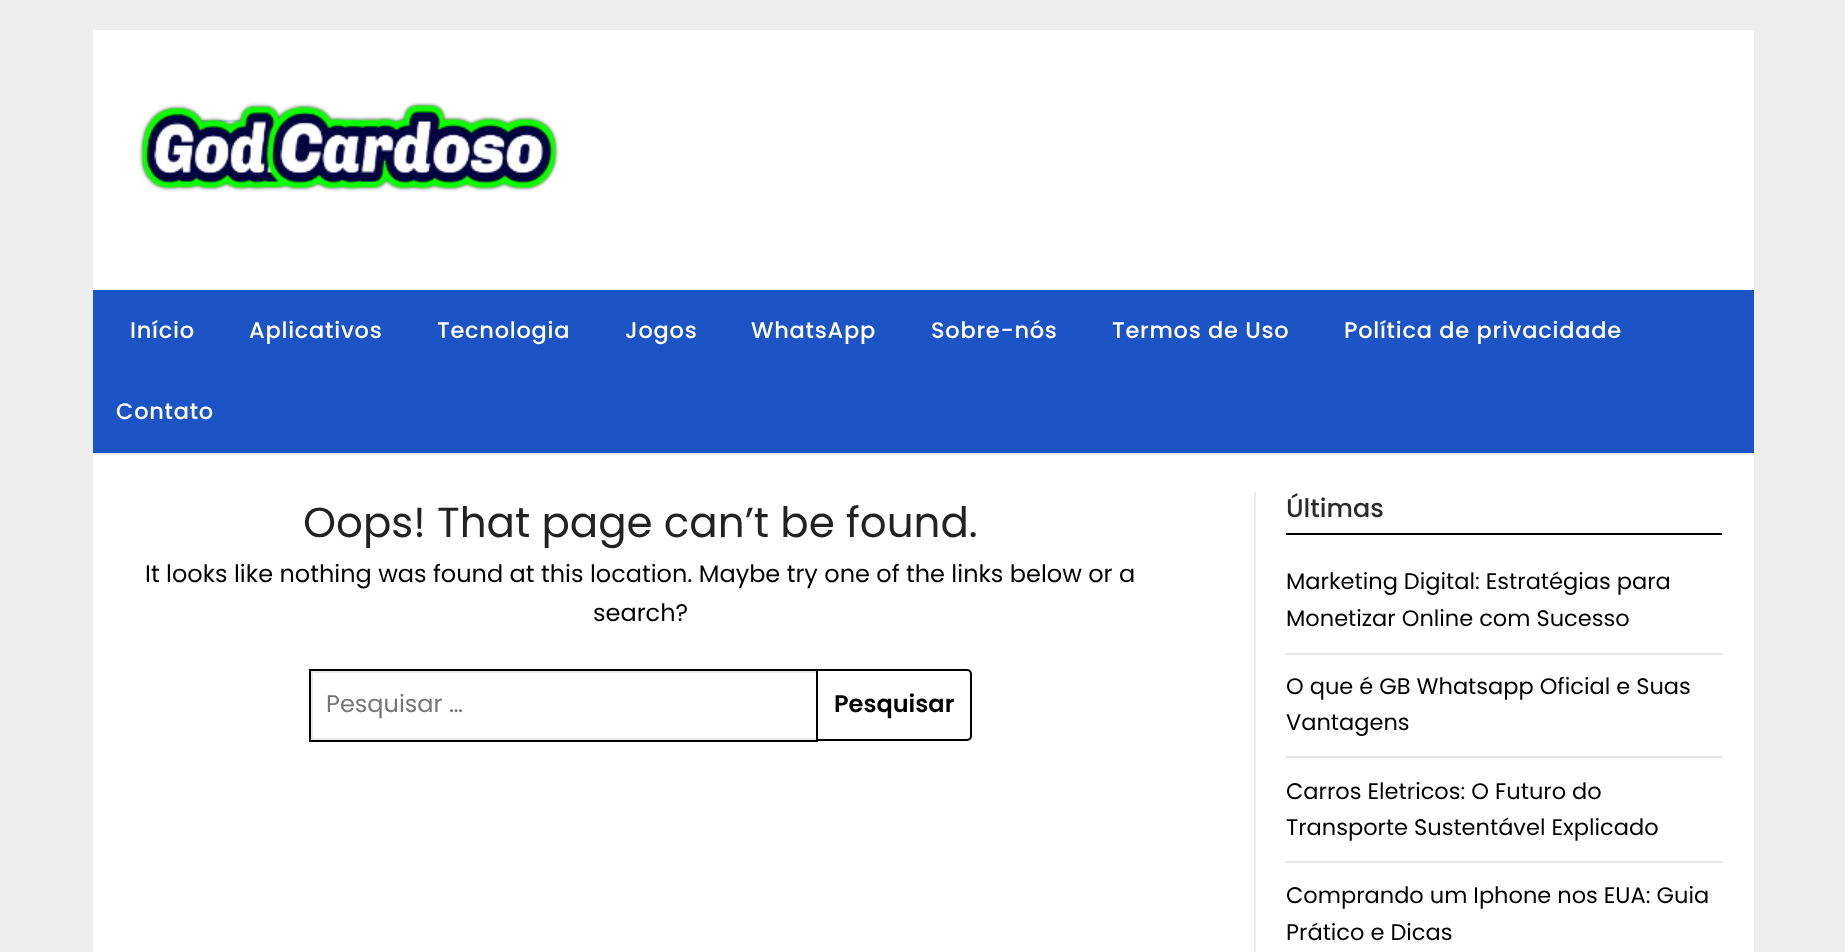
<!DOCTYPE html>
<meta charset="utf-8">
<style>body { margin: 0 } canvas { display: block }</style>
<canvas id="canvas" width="1845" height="952"></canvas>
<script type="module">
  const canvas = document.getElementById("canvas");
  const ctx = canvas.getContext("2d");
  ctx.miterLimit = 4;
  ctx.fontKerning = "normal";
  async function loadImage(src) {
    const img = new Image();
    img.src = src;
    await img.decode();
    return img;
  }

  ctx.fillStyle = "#eeeeee";
  ctx.fillRect(0, 0, 1845, 952);
  ctx.fillStyle = "#ffffff";
  ctx.fillRect(93, 30, 1661, 260);
  ctx.drawImage(await loadImage("img1.png"), 138, 102, 421, 90);
  ctx.fillStyle = "#1c53c5";
  ctx.fillRect(93, 290, 1661, 163);
  ctx.letterSpacing = "0.75px";
  ctx.font = "500 22.5px Poppins";
  ctx.fillStyle = "#ffffff";
  ctx.fillText("Início", 130, 338);
  ctx.fillText("Aplicativos", 249, 338);
  ctx.fillText("Tecnologia", 437, 338);
  ctx.fillText("Jogos", 625, 338);
  ctx.fillText("WhatsApp", 751, 338);
  ctx.fillText("Sobre-nós", 931, 338);
  ctx.fillText("Termos de Uso", 1112, 338);
  ctx.fillText("Política de privacidade", 1344, 338);
  ctx.fillText("Contato", 116, 419);
  ctx.fillRect(93, 455, 1661, 497);
  ctx.letterSpacing = "0px";
  ctx.font = "42px Poppins";
  ctx.fillStyle = "#222222";
  ctx.fillText("Oops! That page can’t be found.", 303, 537);
  ctx.font = "24px Poppins";
  ctx.fillStyle = "#000000";
  ctx.fillText("It looks like nothing was found at this location. Maybe try one of the links below or a", 145, 582);
  ctx.fillText("search?", 593, 621);
  ctx.fillRect(309, 669, 509, 2);
  ctx.fillRect(309, 740, 509, 2);
  ctx.fillRect(309, 669, 2, 72);
  ctx.strokeStyle = "#e5e6e9";
  ctx.lineWidth = 2;
  ctx.strokeRect(312, 672, 505, 67);
  ctx.fillStyle = "#757575";
  ctx.fillText("Pesquisar …", 326, 712);
  ctx.beginPath();
  ctx.roundRect(817, 670, 154, 70, [0, 4, 4, 0]);
  ctx.strokeStyle = "#000000";
  ctx.stroke();
  ctx.font = "600 24px Poppins";
  ctx.fillStyle = "#000000";
  ctx.fillText("Pesquisar", 834, 712);
  ctx.fillStyle = "#ececec";
  ctx.fillRect(1254, 492, 2, 460);
  ctx.fillStyle = "#000000";
  ctx.fillRect(1286, 533, 436, 2);
  ctx.font = "500 25.5px Poppins";
  ctx.fillStyle = "#2b2b2b";
  ctx.fillText("Últimas", 1286, 517);
  ctx.fillStyle = "#e6e6e6";
  ctx.fillRect(1286, 653, 436, 2);
  ctx.font = "22.5px Poppins";
  ctx.fillStyle = "#000000";
  ctx.fillText("Marketing Digital: Estratégias para", 1286, 589);
  ctx.fillText("Monetizar Online com Sucesso", 1286, 626);
  ctx.fillStyle = "#e6e6e6";
  ctx.fillRect(1286, 756, 436, 2);
  ctx.fillStyle = "#000000";
  ctx.fillText("O que é GB Whatsapp Oficial e Suas", 1286, 694);
  ctx.fillText("Vantagens", 1286, 730);
  ctx.fillStyle = "#e6e6e6";
  ctx.fillRect(1286, 861, 436, 2);
  ctx.fillStyle = "#000000";
  ctx.fillText("Carros Eletricos: O Futuro do", 1286, 799);
  ctx.fillText("Transporte Sustentável Explicado", 1286, 835);
  ctx.fillText("Comprando um Iphone nos EUA: Guia", 1286, 903);
  ctx.fillText("Prático e Dicas", 1286, 940);
</script>
